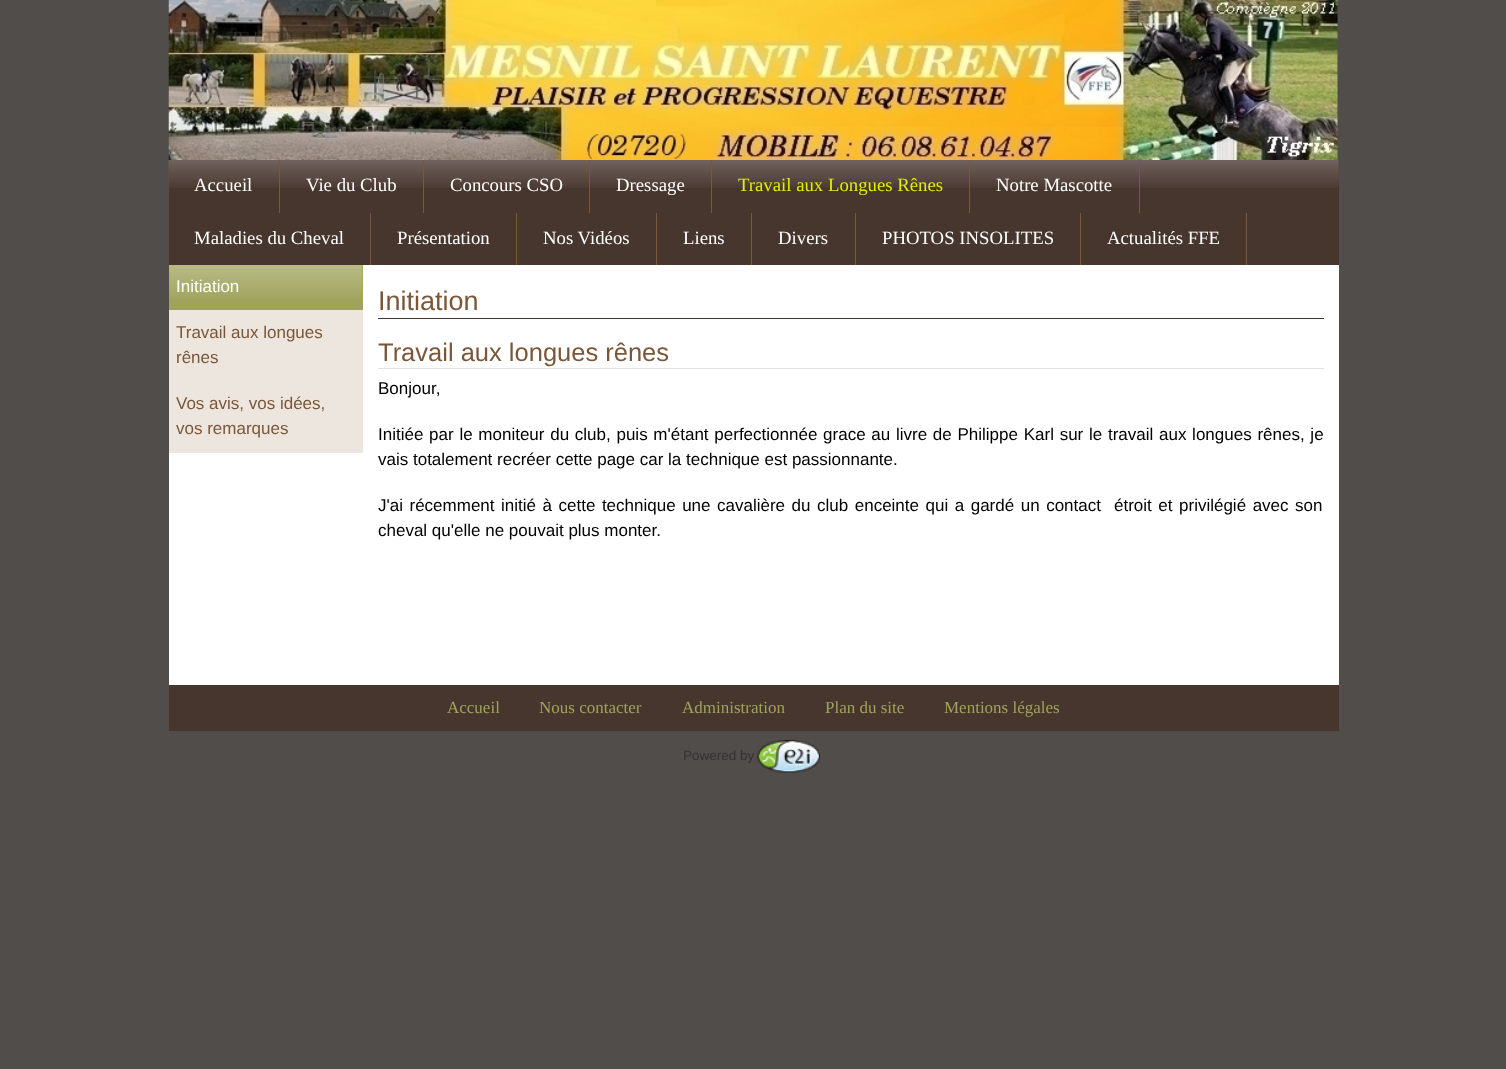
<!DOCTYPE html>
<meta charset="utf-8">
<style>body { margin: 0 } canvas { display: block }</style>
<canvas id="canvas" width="1506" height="1069"></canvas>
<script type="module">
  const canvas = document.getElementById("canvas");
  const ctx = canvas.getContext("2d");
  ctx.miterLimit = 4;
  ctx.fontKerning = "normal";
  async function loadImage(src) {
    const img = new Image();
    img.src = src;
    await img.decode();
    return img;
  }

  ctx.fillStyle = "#504d4a";
  ctx.fillRect(0, 0, 1506, 1069);
  ctx.drawImage(await loadImage("img1.png"), 168, 0, 1170, 160);
  ctx.fillStyle = "#47362e";
  ctx.fillRect(169, 160, 1170, 105);
  ctx.drawImage(await loadImage("img2.png"), 168, 160, 1171, 28);
  ctx.fillStyle = "#7a5739";
  ctx.fillRect(279, 160, 1, 53);
  ctx.font = "18.75px Liberation Serif";
  ctx.fillStyle = "#ffffff";
  ctx.fillText("Accueil", 194, 191);
  ctx.fillStyle = "#7a5739";
  ctx.fillRect(423, 160, 1, 53);
  ctx.fillStyle = "#ffffff";
  ctx.fillText("Vie du Club", 306, 191);
  ctx.fillStyle = "#7a5739";
  ctx.fillRect(589, 160, 1, 53);
  ctx.fillStyle = "#ffffff";
  ctx.fillText("Concours CSO", 450, 191);
  ctx.fillStyle = "#7a5739";
  ctx.fillRect(711, 160, 1, 53);
  ctx.fillStyle = "#ffffff";
  ctx.fillText("Dressage", 616, 191);
  ctx.fillStyle = "#7a5739";
  ctx.fillRect(969, 160, 1, 53);
  ctx.fillStyle = "#deee07";
  ctx.fillText("Travail aux Longues Rênes", 738, 191);
  ctx.fillStyle = "#7a5739";
  ctx.fillRect(1139, 160, 1, 53);
  ctx.fillStyle = "#ffffff";
  ctx.fillText("Notre Mascotte", 996, 191);
  ctx.fillStyle = "#7a5739";
  ctx.fillRect(370, 213, 1, 52);
  ctx.fillStyle = "#ffffff";
  ctx.fillText("Maladies du Cheval", 194, 244);
  ctx.fillStyle = "#7a5739";
  ctx.fillRect(516, 213, 1, 52);
  ctx.fillStyle = "#ffffff";
  ctx.fillText("Présentation", 397, 244);
  ctx.fillStyle = "#7a5739";
  ctx.fillRect(656, 213, 1, 52);
  ctx.fillStyle = "#ffffff";
  ctx.fillText("Nos Vidéos", 543, 244);
  ctx.fillStyle = "#7a5739";
  ctx.fillRect(751, 213, 1, 52);
  ctx.fillStyle = "#ffffff";
  ctx.fillText("Liens", 683, 244);
  ctx.fillStyle = "#7a5739";
  ctx.fillRect(855, 213, 1, 52);
  ctx.fillStyle = "#ffffff";
  ctx.fillText("Divers", 778, 244);
  ctx.fillStyle = "#7a5739";
  ctx.fillRect(1080, 213, 1, 52);
  ctx.fillStyle = "#ffffff";
  ctx.fillText("PHOTOS INSOLITES", 882, 244);
  ctx.fillStyle = "#7a5739";
  ctx.fillRect(1246, 213, 1, 52);
  ctx.fillStyle = "#ffffff";
  ctx.fillText("Actualités FFE", 1107, 244);
  ctx.fillRect(169, 265, 1170, 420);
  ctx.fillStyle = "#ede6de";
  ctx.fillRect(169, 310, 194, 143);
  ctx.fillStyle = "#9fa35b";
  ctx.fillRect(169, 265, 194, 45);
  ctx.drawImage(await loadImage("img3.png"), 169, 265, 194, 34);
  ctx.font = "17px Liberation Sans";
  ctx.fillStyle = "#ffffff";
  ctx.fillText("Initiation", 176, 292);
  ctx.fillStyle = "#7a5739";
  ctx.fillText("Travail aux longues", 176, 338);
  ctx.fillText("rênes", 176, 363);
  ctx.fillText("Vos avis, vos idées,", 176, 409);
  ctx.fillText("vos remarques", 176, 434);
  ctx.fillStyle = "#47362e";
  ctx.fillRect(378, 318, 946, 1);
  ctx.font = "27px Liberation Sans";
  ctx.fillStyle = "#7a5739";
  ctx.fillText("Initiation", 378, 310);
  ctx.fillStyle = "#dee2e6";
  ctx.fillRect(378, 368, 946, 1);
  ctx.font = "25.5px Liberation Sans";
  ctx.fillStyle = "#7a5739";
  ctx.fillText("Travail aux longues rênes", 378, 361);
  ctx.font = "17px Liberation Sans";
  ctx.fillStyle = "#000000";
  ctx.fillText("Bonjour,", 378, 394);
  ctx.wordSpacing = "1px";
  ctx.fillText("Initiée par le moniteur du club, puis m'étant perfectionnée grace au livre de Philippe Karl sur le travail aux longues rênes, je", 378, 440);
  ctx.wordSpacing = "0px";
  ctx.fillText("vais totalement recréer cette page car la technique est passionnante.", 378, 465);
  ctx.wordSpacing = "1.8px";
  ctx.fillText("J'ai récemment initié à cette technique une cavalière du club enceinte qui a gardé un contact  étroit et privilégié avec son", 378, 511);
  ctx.wordSpacing = "0px";
  ctx.fillText("cheval qu'elle ne pouvait plus monter.", 378, 536);
  ctx.fillStyle = "#47362e";
  ctx.fillRect(169, 685, 1170, 46);
  ctx.font = "17px Liberation Serif";
  ctx.fillStyle = "#9fa35b";
  ctx.fillText("Accueil", 447, 713);
  ctx.fillText("Nous contacter", 539, 713);
  ctx.fillText("Administration", 682, 713);
  ctx.fillText("Plan du site", 825, 713);
  ctx.fillText("Mentions légales", 944, 713);
  ctx.font = "13.5px Liberation Sans";
  ctx.fillStyle = "#333333";
  ctx.fillText("Powered by", 683, 760);
  ctx.drawImage(await loadImage("img4.png"), 757, 740, 63, 33);
</script>
